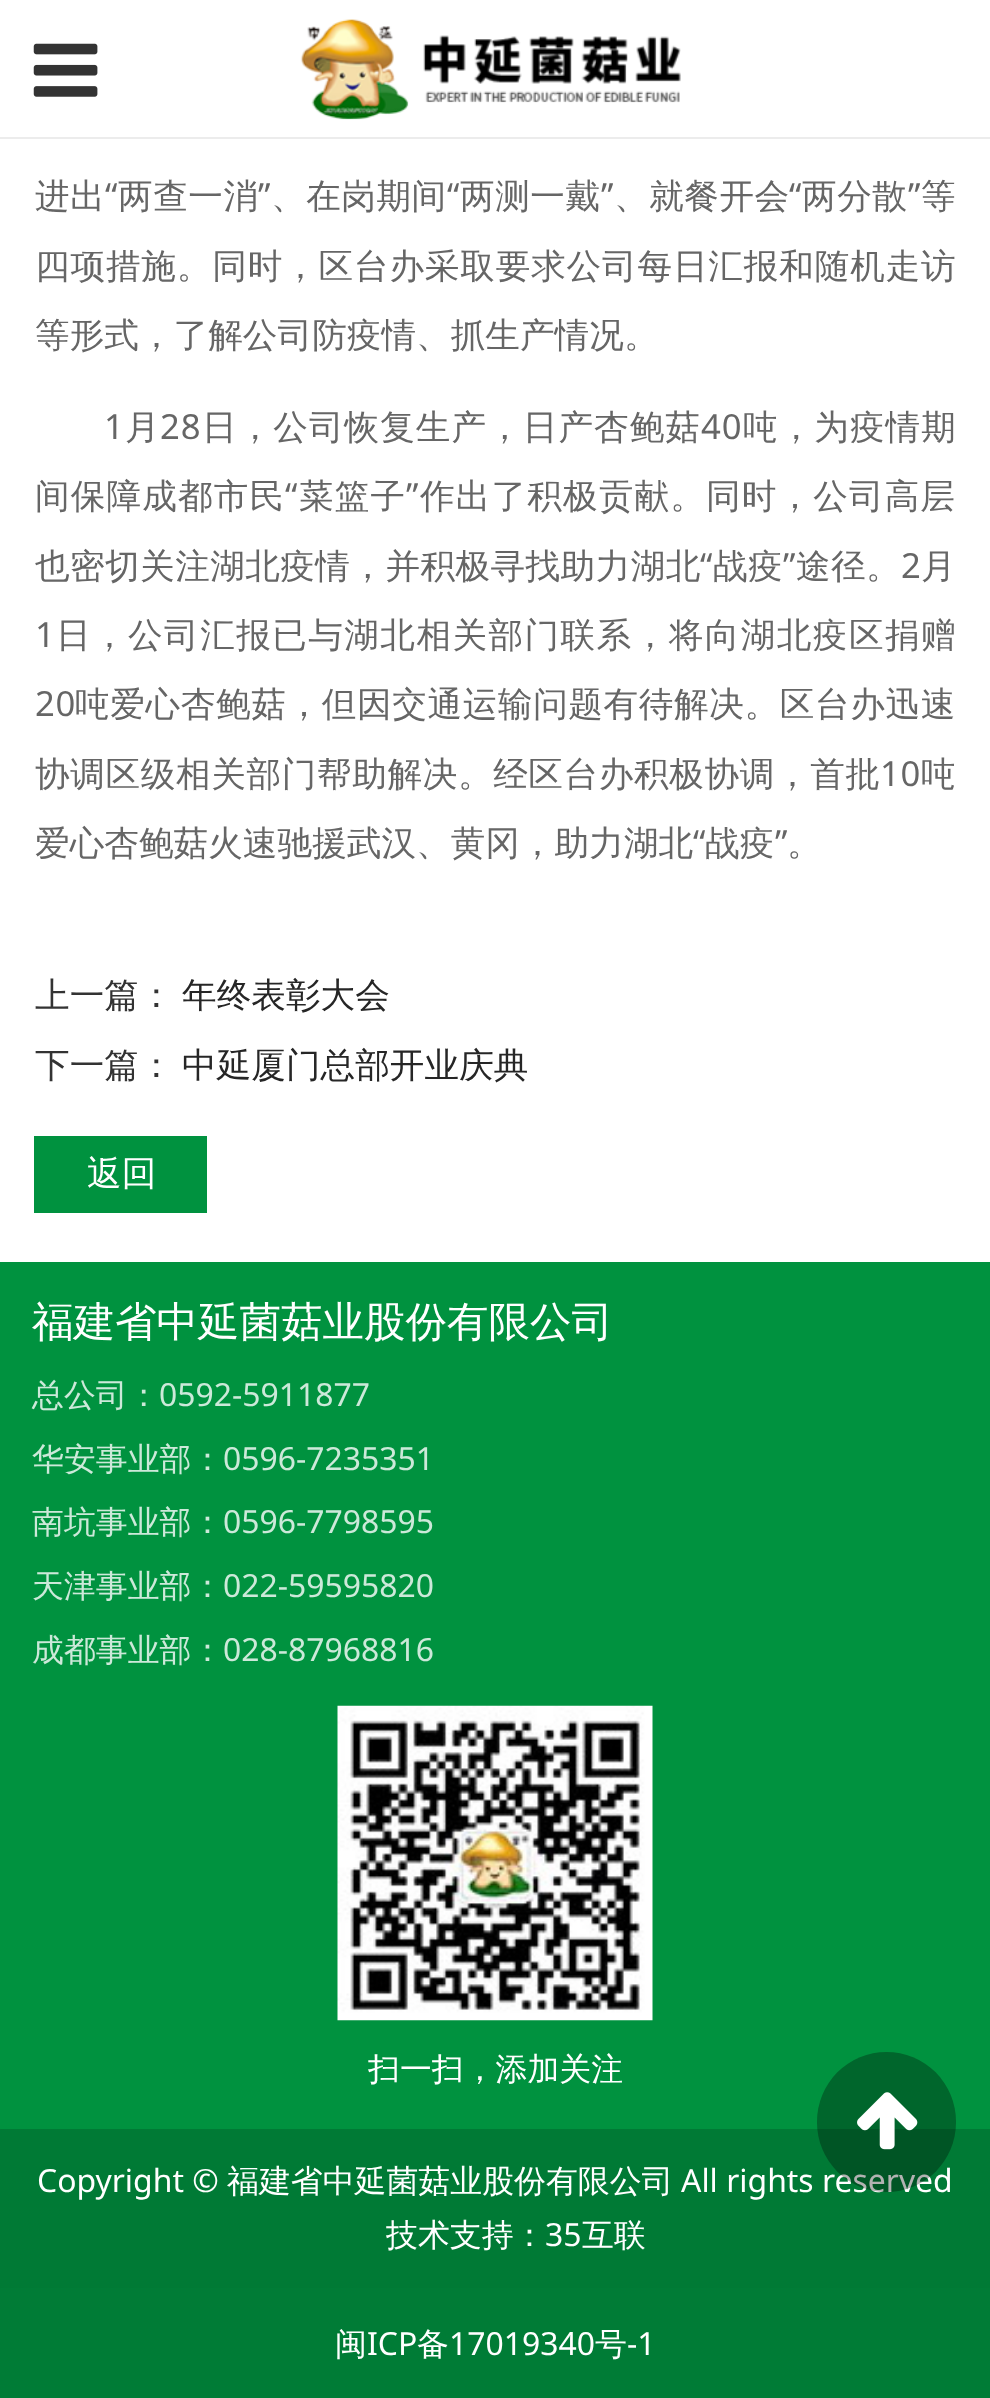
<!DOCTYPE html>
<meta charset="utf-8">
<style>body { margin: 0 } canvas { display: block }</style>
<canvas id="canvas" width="990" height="2398"></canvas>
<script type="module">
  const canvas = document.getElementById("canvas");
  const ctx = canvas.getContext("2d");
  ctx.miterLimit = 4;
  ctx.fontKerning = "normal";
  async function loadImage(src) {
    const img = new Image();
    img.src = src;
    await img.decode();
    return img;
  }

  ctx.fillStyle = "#ffffff";
  ctx.fillRect(0, 0, 990, 2398);
  ctx.fillStyle = "#ececec";
  ctx.fillRect(0, 137, 990, 2);
  ctx.drawImage(await loadImage("img1.png"), 33, 43, 65, 54);
  ctx.drawImage(await loadImage("img2.png"), 300, 19, 381, 101);
  ctx.letterSpacing = "0.5px";
  ctx.font = "500 34.65px WenQuanYi Zen Hei";
  ctx.fillStyle = "#666666";
  ctx.fillText("进出", 35, 208);
  ctx.font = "34.65px Noto Sans";
  ctx.fillText("“", 105, 208);
  ctx.font = "500 34.65px WenQuanYi Zen Hei";
  ctx.fillText("两查一消", 118, 208);
  ctx.font = "34.65px Noto Sans";
  ctx.fillText("”", 258, 208);
  ctx.font = "500 34.65px WenQuanYi Zen Hei";
  ctx.fillText("、在岗期间", 271, 208);
  ctx.font = "34.65px Noto Sans";
  ctx.fillText("“", 447, 208);
  ctx.font = "500 34.65px WenQuanYi Zen Hei";
  ctx.fillText("两测一戴", 460, 208);
  ctx.font = "34.65px Noto Sans";
  ctx.fillText("”", 601, 208);
  ctx.font = "500 34.65px WenQuanYi Zen Hei";
  ctx.fillText("、就餐开会", 614, 208);
  ctx.font = "34.65px Noto Sans";
  ctx.fillText("“", 789, 208);
  ctx.font = "500 34.65px WenQuanYi Zen Hei";
  ctx.fillText("两分散", 802, 208);
  ctx.font = "34.65px Noto Sans";
  ctx.fillText("”", 908, 208);
  ctx.font = "500 34.65px WenQuanYi Zen Hei";
  ctx.fillText("等", 921, 208);
  ctx.letterSpacing = "0.8px";
  ctx.fillText("四项措施。同时，区台办采取要求公司每日汇报和随机走访", 35, 278);
  ctx.letterSpacing = "0px";
  ctx.fillText("等形式，了解公司防疫情、抓生产情况。", 35, 347);
  ctx.letterSpacing = "1px";
  ctx.font = "34.65px Noto Sans";
  ctx.fillText("1", 104, 439);
  ctx.font = "500 34.65px WenQuanYi Zen Hei";
  ctx.fillText("月", 125, 439);
  ctx.font = "34.65px Noto Sans";
  ctx.fillText("28", 160, 439);
  ctx.font = "500 34.65px WenQuanYi Zen Hei";
  ctx.fillText("日，公司恢复生产，日产杏鲍菇", 202, 439);
  ctx.font = "34.65px Noto Sans";
  ctx.fillText("40", 701, 439);
  ctx.font = "500 34.65px WenQuanYi Zen Hei";
  ctx.fillText("吨，为疫情期", 743, 439);
  ctx.letterSpacing = "1.1px";
  ctx.fillText("间保障成都市民", 35, 508);
  ctx.font = "34.65px Noto Sans";
  ctx.fillText("“", 285, 508);
  ctx.font = "500 34.65px WenQuanYi Zen Hei";
  ctx.fillText("菜篮子", 299, 508);
  ctx.font = "34.65px Noto Sans";
  ctx.fillText("”", 406, 508);
  ctx.font = "500 34.65px WenQuanYi Zen Hei";
  ctx.fillText("作出了积极贡献。同时，公司高层", 420, 508);
  ctx.letterSpacing = "0.4px";
  ctx.fillText("也密切关注湖北疫情，并积极寻找助力湖北", 35, 578);
  ctx.font = "34.65px Noto Sans";
  ctx.fillText("“", 700, 578);
  ctx.font = "500 34.65px WenQuanYi Zen Hei";
  ctx.fillText("战疫", 713, 578);
  ctx.font = "34.65px Noto Sans";
  ctx.fillText("”", 783, 578);
  ctx.font = "500 34.65px WenQuanYi Zen Hei";
  ctx.fillText("途径。", 796, 578);
  ctx.font = "34.65px Noto Sans";
  ctx.fillText("2", 901, 578);
  ctx.font = "500 34.65px WenQuanYi Zen Hei";
  ctx.fillText("月", 921, 578);
  ctx.letterSpacing = "1.4px";
  ctx.font = "34.65px Noto Sans";
  ctx.fillText("1", 35, 647);
  ctx.font = "500 34.65px WenQuanYi Zen Hei";
  ctx.fillText("日，公司汇报已与湖北相关部门联系，将向湖北疫区捐赠", 56, 647);
  ctx.letterSpacing = "0.6px";
  ctx.font = "34.65px Noto Sans";
  ctx.fillText("20", 35, 716);
  ctx.font = "500 34.65px WenQuanYi Zen Hei";
  ctx.fillText("吨爱心杏鲍菇，但因交通运输问题有待解决。区台办迅速", 75, 716);
  ctx.fillText("协调区级相关部门帮助解决。经区台办积极协调，首批", 35, 786);
  ctx.font = "34.65px Noto Sans";
  ctx.fillText("10", 880, 786);
  ctx.font = "500 34.65px WenQuanYi Zen Hei";
  ctx.fillText("吨", 921, 786);
  ctx.letterSpacing = "0px";
  ctx.fillText("爱心杏鲍菇火速驰援武汉、黄冈，助力湖北", 35, 855);
  ctx.font = "34.65px Noto Sans";
  ctx.fillText("“", 693, 855);
  ctx.font = "500 34.65px WenQuanYi Zen Hei";
  ctx.fillText("战疫", 705, 855);
  ctx.font = "34.65px Noto Sans";
  ctx.fillText("”", 775, 855);
  ctx.font = "500 34.65px WenQuanYi Zen Hei";
  ctx.fillText("。", 787, 855);
  ctx.fillStyle = "#333333";
  ctx.fillText("上一篇：", 35, 1007);
  ctx.fillStyle = "#262626";
  ctx.fillText("年终表彰大会", 182, 1007);
  ctx.fillStyle = "#333333";
  ctx.fillText("下一篇：", 35, 1077);
  ctx.fillStyle = "#262626";
  ctx.fillText("中延厦门总部开业庆典", 182, 1077);
  ctx.fillStyle = "#00923f";
  ctx.fillRect(34, 1136, 173, 77);
  ctx.fillStyle = "#ffffff";
  ctx.fillText("返回", 87, 1185);
  ctx.fillStyle = "#00923f";
  ctx.fillRect(0, 1262, 990, 867);
  ctx.font = "500 41.5px WenQuanYi Zen Hei";
  ctx.fillStyle = "#ffffff";
  ctx.fillText("福建省中延菌菇业股份有限公司", 32, 1336);
  ctx.font = "500 31.9px WenQuanYi Zen Hei";
  ctx.fillStyle = "#cce9d9";
  ctx.fillText("总公司：", 32, 1406);
  ctx.font = "31.9px Noto Sans";
  ctx.fillText("0592-5911877", 159, 1406);
  ctx.font = "500 31.9px WenQuanYi Zen Hei";
  ctx.fillText("华安事业部：", 32, 1470);
  ctx.font = "31.9px Noto Sans";
  ctx.fillText("0596-7235351", 223, 1470);
  ctx.font = "500 31.9px WenQuanYi Zen Hei";
  ctx.fillText("南坑事业部：", 32, 1533);
  ctx.font = "31.9px Noto Sans";
  ctx.fillText("0596-7798595", 223, 1533);
  ctx.font = "500 31.9px WenQuanYi Zen Hei";
  ctx.fillText("天津事业部：", 32, 1597);
  ctx.font = "31.9px Noto Sans";
  ctx.fillText("022-59595820", 223, 1597);
  ctx.font = "500 31.9px WenQuanYi Zen Hei";
  ctx.fillText("成都事业部：", 32, 1661);
  ctx.font = "31.9px Noto Sans";
  ctx.fillText("028-87968816", 223, 1661);
  ctx.drawImage(await loadImage("img3.png"), 337, 1705, 316, 316);
  ctx.font = "500 31.9px WenQuanYi Zen Hei";
  ctx.fillStyle = "#ffffff";
  ctx.fillText("扫一扫，添加关注", 368, 2080);
  ctx.fillStyle = "#007a35";
  ctx.fillRect(0, 2129, 990, 159);
  ctx.font = "31.9px Noto Sans";
  ctx.fillStyle = "#ffffff";
  ctx.fillText("Copyright ©", 37, 2192);
  ctx.font = "500 31.9px WenQuanYi Zen Hei";
  ctx.fillText("福建省中延菌菇业股份有限公司", 227, 2192);
  ctx.font = "31.9px Noto Sans";
  ctx.fillText("All rights reserved", 681, 2192);
  ctx.font = "500 31.9px WenQuanYi Zen Hei";
  ctx.fillText("技术支持：", 386, 2246);
  ctx.font = "31.9px Noto Sans";
  ctx.fillText("35", 545, 2246);
  ctx.font = "500 31.9px WenQuanYi Zen Hei";
  ctx.fillText("互联", 582, 2246);
  ctx.fillStyle = "#007c36";
  ctx.fillRect(0, 2288, 990, 110);
  ctx.fillStyle = "#ffffff";
  ctx.fillText("闽", 335, 2355);
  ctx.font = "31.9px Noto Sans";
  ctx.fillText("ICP", 367, 2355);
  ctx.font = "500 31.9px WenQuanYi Zen Hei";
  ctx.fillText("备", 417, 2355);
  ctx.font = "31.9px Noto Sans";
  ctx.fillText("17019340", 449, 2355);
  ctx.font = "500 31.9px WenQuanYi Zen Hei";
  ctx.fillText("号", 595, 2355);
  ctx.font = "31.9px Noto Sans";
  ctx.fillText("-1", 627, 2355);
  ctx.fillStyle = "rgba(0, 0, 0, 0.3)";
  ctx.beginPath();
  ctx.roundRect(817, 2052, 139, 140, 69.5);
  ctx.fill();
  ctx.drawImage(await loadImage("img4.png"), 857, 2092, 61, 58);
</script>
